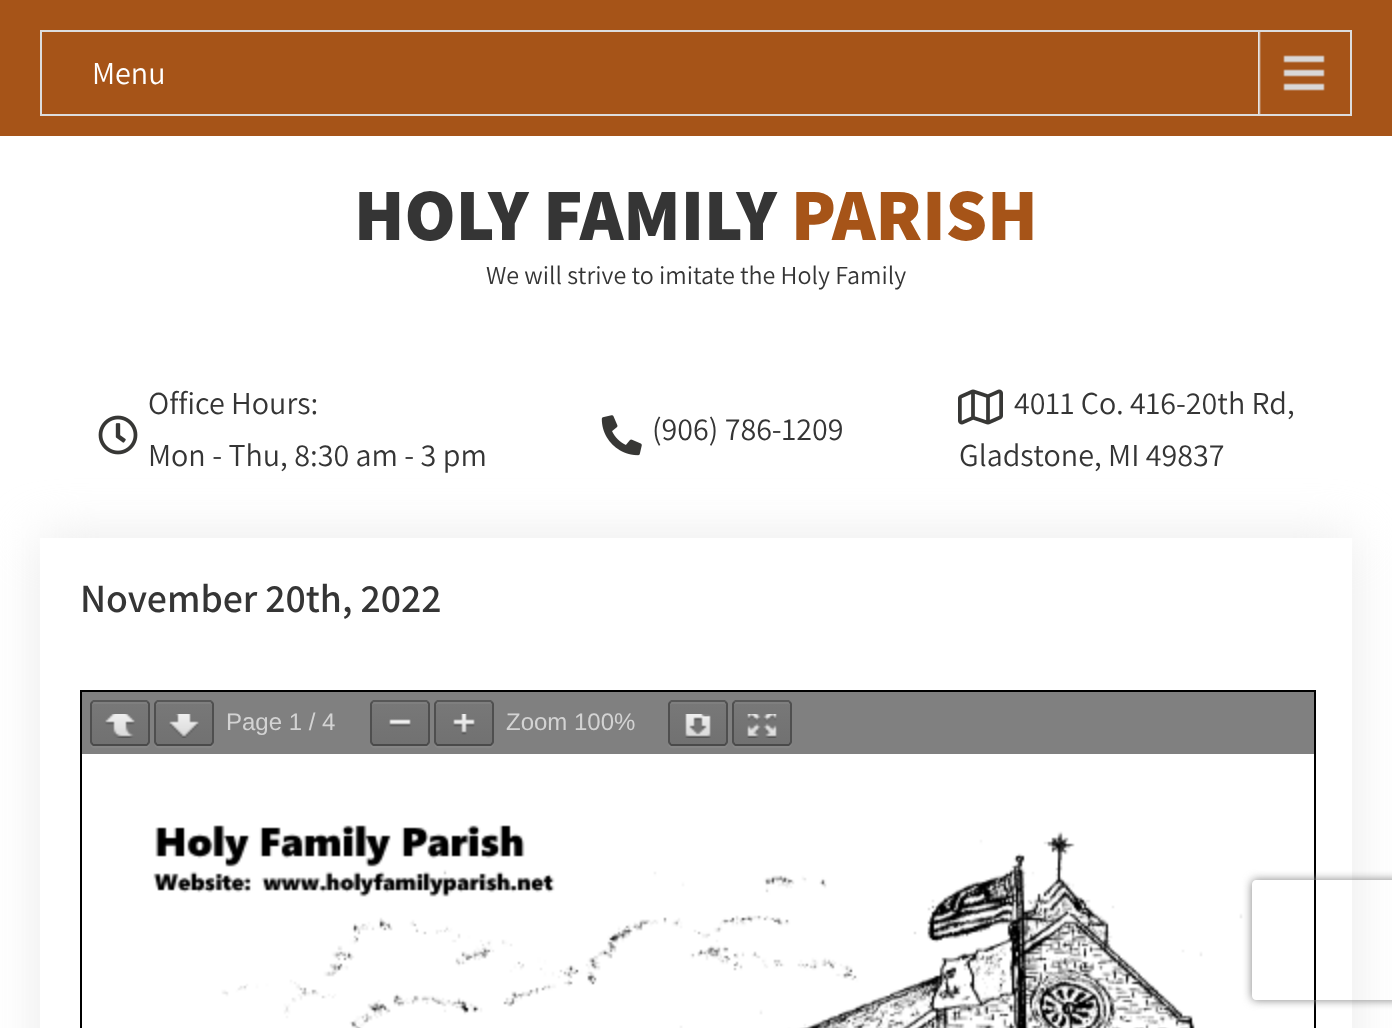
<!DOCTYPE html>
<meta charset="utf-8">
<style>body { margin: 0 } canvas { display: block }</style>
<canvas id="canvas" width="1392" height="1028"></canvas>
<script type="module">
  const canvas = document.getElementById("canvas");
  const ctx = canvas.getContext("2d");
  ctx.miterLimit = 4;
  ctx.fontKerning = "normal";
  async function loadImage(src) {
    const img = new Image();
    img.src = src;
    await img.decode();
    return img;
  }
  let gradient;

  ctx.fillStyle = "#ffffff";
  ctx.fillRect(0, 0, 1392, 1028);
  ctx.fillStyle = "#a65418";
  ctx.fillRect(0, 0, 1392, 136);
  ctx.drawImage(await loadImage("img1.png"), 1258, 32, 67, 82);
  ctx.strokeStyle = "#dddddd";
  ctx.lineWidth = 2;
  ctx.strokeRect(41, 31, 1310, 84);
  ctx.font = "200 32px Assistant";
  ctx.fillStyle = "#ffffff";
  ctx.fillText("Menu", 92, 84);
  ctx.font = "800 74px Assistant";
  ctx.fillStyle = "#353535";
  ctx.fillText("HOLY FAMILY", 354, 240);
  ctx.fillStyle = "#a65418";
  ctx.fillText("PARISH", 791, 240);
  ctx.font = "200 26px Assistant";
  ctx.fillStyle = "#353535";
  ctx.fillText("We will strive to imitate the Holy Family", 486, 284);
  ctx.drawImage(await loadImage("img2.png"), 98, 415, 40, 40);
  ctx.font = "200 32px Assistant";
  ctx.fillText("Office Hours:", 148, 414);
  ctx.save();
  ctx.beginPath();
  ctx.moveTo(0, 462);
  ctx.lineTo(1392, 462);
  ctx.lineTo(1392, 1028);
  ctx.lineTo(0, 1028);
  ctx.closePath();
  ctx.moveTo(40, 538);
  ctx.lineTo(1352, 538);
  ctx.lineTo(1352, 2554);
  ctx.lineTo(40, 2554);
  ctx.closePath();
  ctx.clip("evenodd");
  ctx.fillStyle = "#e9e9e9";
  ctx.filter = "blur(25px)";
  ctx.beginPath();
  ctx.rect(40, 538, 1312, 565);
  ctx.fill();
  ctx.filter = "none";
  ctx.restore();
  ctx.fillText("Mon - Thu, 8:30 am - 3 pm", 148, 466);
  ctx.drawImage(await loadImage("img3.png"), 601, 415, 41, 41);
  ctx.fillText("(906) 786-1209", 652, 440);
  ctx.drawImage(await loadImage("img4.png"), 958, 389, 45, 36);
  ctx.fillText("4011 Co. 416-20th Rd,", 1014, 414);
  ctx.fillText("Gladstone, MI 49837", 959, 466);
  ctx.font = "600 40px Assistant";
  ctx.fillText("November 20th, 2022", 80, 612);
  ctx.strokeStyle = "#000000";
  ctx.strokeRect(81, 691, 1234, 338);
  ctx.fillStyle = "#808080";
  ctx.fillRect(82, 692, 1232, 62);
  ctx.fillStyle = "#868686";
  ctx.beginPath();
  ctx.moveTo(90, 742);
  ctx.bezierCurveTo(90, 750, 95, 748, 103, 748);
  ctx.lineTo(137, 748);
  ctx.bezierCurveTo(145, 748, 150, 750, 150, 742);
  ctx.bezierCurveTo(150, 744, 148, 746, 146, 746);
  ctx.lineTo(94, 746);
  ctx.bezierCurveTo(92, 746, 90, 744, 90, 742);
  ctx.closePath();
  ctx.fill();
  gradient = ctx.createLinearGradient(120, 702, 120, 744);
  gradient.addColorStop(0, "#787878");
  gradient.addColorStop(1, "#717171");
  ctx.fillStyle = gradient;
  ctx.beginPath();
  ctx.roundRect(92, 702, 56, 42, 2);
  ctx.fill();
  ctx.fillStyle = "#7f7f7f";
  ctx.beginPath();
  ctx.moveTo(94, 704);
  ctx.lineTo(146, 704);
  ctx.bezierCurveTo(147, 704, 148, 705, 148, 706);
  ctx.bezierCurveTo(148, 700, 144, 702, 137, 702);
  ctx.lineTo(103, 702);
  ctx.bezierCurveTo(96, 702, 92, 700, 92, 706);
  ctx.bezierCurveTo(92, 705, 93, 704, 94, 704);
  ctx.closePath();
  ctx.fill();
  ctx.beginPath();
  ctx.moveTo(92, 702);
  ctx.lineTo(93.5, 701);
  ctx.lineTo(146.5, 701);
  ctx.lineTo(148, 702);
  ctx.strokeStyle = "rgba(0, 0, 0, 0.32)";
  ctx.stroke();
  ctx.beginPath();
  ctx.moveTo(148, 702);
  ctx.lineTo(149, 704);
  ctx.lineTo(149, 742);
  ctx.lineTo(148, 744);
  ctx.strokeStyle = "rgba(0, 0, 0, 0.38)";
  ctx.stroke();
  ctx.beginPath();
  ctx.moveTo(148, 744);
  ctx.lineTo(146.5, 745);
  ctx.lineTo(93.5, 745);
  ctx.lineTo(92, 744);
  ctx.strokeStyle = "rgba(0, 0, 0, 0.42)";
  ctx.stroke();
  ctx.beginPath();
  ctx.moveTo(92, 744);
  ctx.lineTo(91, 742);
  ctx.lineTo(91, 704);
  ctx.lineTo(92, 702);
  ctx.strokeStyle = "rgba(0, 0, 0, 0.38)";
  ctx.stroke();
  ctx.drawImage(await loadImage("img5.png"), 105, 714, 30, 24);
  ctx.fillStyle = "#868686";
  ctx.beginPath();
  ctx.moveTo(154, 742);
  ctx.bezierCurveTo(154, 750, 159, 748, 167, 748);
  ctx.lineTo(201, 748);
  ctx.bezierCurveTo(209, 748, 214, 750, 214, 742);
  ctx.bezierCurveTo(214, 744, 212, 746, 210, 746);
  ctx.lineTo(158, 746);
  ctx.bezierCurveTo(156, 746, 154, 744, 154, 742);
  ctx.closePath();
  ctx.fill();
  gradient = ctx.createLinearGradient(184, 702, 184, 744);
  gradient.addColorStop(0, "#787878");
  gradient.addColorStop(1, "#717171");
  ctx.fillStyle = gradient;
  ctx.beginPath();
  ctx.roundRect(156, 702, 56, 42, 2);
  ctx.fill();
  ctx.fillStyle = "#7f7f7f";
  ctx.beginPath();
  ctx.moveTo(158, 704);
  ctx.lineTo(210, 704);
  ctx.bezierCurveTo(211, 704, 212, 705, 212, 706);
  ctx.bezierCurveTo(212, 700, 208, 702, 201, 702);
  ctx.lineTo(167, 702);
  ctx.bezierCurveTo(160, 702, 156, 700, 156, 706);
  ctx.bezierCurveTo(156, 705, 157, 704, 158, 704);
  ctx.closePath();
  ctx.fill();
  ctx.beginPath();
  ctx.moveTo(156, 702);
  ctx.lineTo(157.5, 701);
  ctx.lineTo(210.5, 701);
  ctx.lineTo(212, 702);
  ctx.strokeStyle = "rgba(0, 0, 0, 0.32)";
  ctx.stroke();
  ctx.beginPath();
  ctx.moveTo(212, 702);
  ctx.lineTo(213, 704);
  ctx.lineTo(213, 742);
  ctx.lineTo(212, 744);
  ctx.strokeStyle = "rgba(0, 0, 0, 0.38)";
  ctx.stroke();
  ctx.beginPath();
  ctx.moveTo(212, 744);
  ctx.lineTo(210.5, 745);
  ctx.lineTo(157.5, 745);
  ctx.lineTo(156, 744);
  ctx.strokeStyle = "rgba(0, 0, 0, 0.42)";
  ctx.stroke();
  ctx.beginPath();
  ctx.moveTo(156, 744);
  ctx.lineTo(155, 742);
  ctx.lineTo(155, 704);
  ctx.lineTo(156, 702);
  ctx.strokeStyle = "rgba(0, 0, 0, 0.38)";
  ctx.stroke();
  ctx.drawImage(await loadImage("img6.png"), 169, 714, 30, 24);
  ctx.font = "24px Liberation Sans";
  ctx.fillStyle = "#d3d3d3";
  ctx.fillText("Page 1 / 4", 226, 730);
  ctx.fillStyle = "#868686";
  ctx.beginPath();
  ctx.moveTo(370, 742);
  ctx.bezierCurveTo(370, 750, 375, 748, 383, 748);
  ctx.lineTo(417, 748);
  ctx.bezierCurveTo(425, 748, 430, 750, 430, 742);
  ctx.bezierCurveTo(430, 744, 428, 746, 426, 746);
  ctx.lineTo(374, 746);
  ctx.bezierCurveTo(372, 746, 370, 744, 370, 742);
  ctx.closePath();
  ctx.fill();
  gradient = ctx.createLinearGradient(400, 702, 400, 744);
  gradient.addColorStop(0, "#787878");
  gradient.addColorStop(1, "#717171");
  ctx.fillStyle = gradient;
  ctx.beginPath();
  ctx.roundRect(372, 702, 56, 42, 2);
  ctx.fill();
  ctx.fillStyle = "#7f7f7f";
  ctx.beginPath();
  ctx.moveTo(374, 704);
  ctx.lineTo(426, 704);
  ctx.bezierCurveTo(427, 704, 428, 705, 428, 706);
  ctx.bezierCurveTo(428, 700, 424, 702, 417, 702);
  ctx.lineTo(383, 702);
  ctx.bezierCurveTo(376, 702, 372, 700, 372, 706);
  ctx.bezierCurveTo(372, 705, 373, 704, 374, 704);
  ctx.closePath();
  ctx.fill();
  ctx.beginPath();
  ctx.moveTo(372, 702);
  ctx.lineTo(373.5, 701);
  ctx.lineTo(426.5, 701);
  ctx.lineTo(428, 702);
  ctx.strokeStyle = "rgba(0, 0, 0, 0.32)";
  ctx.stroke();
  ctx.beginPath();
  ctx.moveTo(428, 702);
  ctx.lineTo(429, 704);
  ctx.lineTo(429, 742);
  ctx.lineTo(428, 744);
  ctx.strokeStyle = "rgba(0, 0, 0, 0.38)";
  ctx.stroke();
  ctx.beginPath();
  ctx.moveTo(428, 744);
  ctx.lineTo(426.5, 745);
  ctx.lineTo(373.5, 745);
  ctx.lineTo(372, 744);
  ctx.strokeStyle = "rgba(0, 0, 0, 0.42)";
  ctx.stroke();
  ctx.beginPath();
  ctx.moveTo(372, 744);
  ctx.lineTo(371, 742);
  ctx.lineTo(371, 704);
  ctx.lineTo(372, 702);
  ctx.strokeStyle = "rgba(0, 0, 0, 0.38)";
  ctx.stroke();
  ctx.drawImage(await loadImage("img7.png"), 389, 719, 22, 8);
  ctx.fillStyle = "#868686";
  ctx.beginPath();
  ctx.moveTo(434, 742);
  ctx.bezierCurveTo(434, 750, 439, 748, 447, 748);
  ctx.lineTo(481, 748);
  ctx.bezierCurveTo(489, 748, 494, 750, 494, 742);
  ctx.bezierCurveTo(494, 744, 492, 746, 490, 746);
  ctx.lineTo(438, 746);
  ctx.bezierCurveTo(436, 746, 434, 744, 434, 742);
  ctx.closePath();
  ctx.fill();
  gradient = ctx.createLinearGradient(464, 702, 464, 744);
  gradient.addColorStop(0, "#787878");
  gradient.addColorStop(1, "#717171");
  ctx.fillStyle = gradient;
  ctx.beginPath();
  ctx.roundRect(436, 702, 56, 42, 2);
  ctx.fill();
  ctx.fillStyle = "#7f7f7f";
  ctx.beginPath();
  ctx.moveTo(438, 704);
  ctx.lineTo(490, 704);
  ctx.bezierCurveTo(491, 704, 492, 705, 492, 706);
  ctx.bezierCurveTo(492, 700, 488, 702, 481, 702);
  ctx.lineTo(447, 702);
  ctx.bezierCurveTo(440, 702, 436, 700, 436, 706);
  ctx.bezierCurveTo(436, 705, 437, 704, 438, 704);
  ctx.closePath();
  ctx.fill();
  ctx.beginPath();
  ctx.moveTo(436, 702);
  ctx.lineTo(437.5, 701);
  ctx.lineTo(490.5, 701);
  ctx.lineTo(492, 702);
  ctx.strokeStyle = "rgba(0, 0, 0, 0.32)";
  ctx.stroke();
  ctx.beginPath();
  ctx.moveTo(492, 702);
  ctx.lineTo(493, 704);
  ctx.lineTo(493, 742);
  ctx.lineTo(492, 744);
  ctx.strokeStyle = "rgba(0, 0, 0, 0.38)";
  ctx.stroke();
  ctx.beginPath();
  ctx.moveTo(492, 744);
  ctx.lineTo(490.5, 745);
  ctx.lineTo(437.5, 745);
  ctx.lineTo(436, 744);
  ctx.strokeStyle = "rgba(0, 0, 0, 0.42)";
  ctx.stroke();
  ctx.beginPath();
  ctx.moveTo(436, 744);
  ctx.lineTo(435, 742);
  ctx.lineTo(435, 704);
  ctx.lineTo(436, 702);
  ctx.strokeStyle = "rgba(0, 0, 0, 0.38)";
  ctx.stroke();
  ctx.drawImage(await loadImage("img8.png"), 453, 714, 22, 21);
  ctx.fillStyle = "#d3d3d3";
  ctx.fillText("Zoom 100%", 506, 730);
  ctx.fillStyle = "#868686";
  ctx.beginPath();
  ctx.moveTo(668, 742);
  ctx.bezierCurveTo(668, 750, 673, 748, 681, 748);
  ctx.lineTo(715, 748);
  ctx.bezierCurveTo(723, 748, 728, 750, 728, 742);
  ctx.bezierCurveTo(728, 744, 726, 746, 724, 746);
  ctx.lineTo(672, 746);
  ctx.bezierCurveTo(670, 746, 668, 744, 668, 742);
  ctx.closePath();
  ctx.fill();
  gradient = ctx.createLinearGradient(698, 702, 698, 744);
  gradient.addColorStop(0, "#787878");
  gradient.addColorStop(1, "#717171");
  ctx.fillStyle = gradient;
  ctx.beginPath();
  ctx.roundRect(670, 702, 56, 42, 2);
  ctx.fill();
  ctx.fillStyle = "#7f7f7f";
  ctx.beginPath();
  ctx.moveTo(672, 704);
  ctx.lineTo(724, 704);
  ctx.bezierCurveTo(725, 704, 726, 705, 726, 706);
  ctx.bezierCurveTo(726, 700, 722, 702, 715, 702);
  ctx.lineTo(681, 702);
  ctx.bezierCurveTo(674, 702, 670, 700, 670, 706);
  ctx.bezierCurveTo(670, 705, 671, 704, 672, 704);
  ctx.closePath();
  ctx.fill();
  ctx.beginPath();
  ctx.moveTo(670, 702);
  ctx.lineTo(671.5, 701);
  ctx.lineTo(724.5, 701);
  ctx.lineTo(726, 702);
  ctx.strokeStyle = "rgba(0, 0, 0, 0.32)";
  ctx.stroke();
  ctx.beginPath();
  ctx.moveTo(726, 702);
  ctx.lineTo(727, 704);
  ctx.lineTo(727, 742);
  ctx.lineTo(726, 744);
  ctx.strokeStyle = "rgba(0, 0, 0, 0.38)";
  ctx.stroke();
  ctx.beginPath();
  ctx.moveTo(726, 744);
  ctx.lineTo(724.5, 745);
  ctx.lineTo(671.5, 745);
  ctx.lineTo(670, 744);
  ctx.strokeStyle = "rgba(0, 0, 0, 0.42)";
  ctx.stroke();
  ctx.beginPath();
  ctx.moveTo(670, 744);
  ctx.lineTo(669, 742);
  ctx.lineTo(669, 704);
  ctx.lineTo(670, 702);
  ctx.strokeStyle = "rgba(0, 0, 0, 0.38)";
  ctx.stroke();
  ctx.drawImage(await loadImage("img9.png"), 685, 714, 26, 24);
  ctx.fillStyle = "#868686";
  ctx.beginPath();
  ctx.moveTo(732, 742);
  ctx.bezierCurveTo(732, 750, 737, 748, 745, 748);
  ctx.lineTo(779, 748);
  ctx.bezierCurveTo(787, 748, 792, 750, 792, 742);
  ctx.bezierCurveTo(792, 744, 790, 746, 788, 746);
  ctx.lineTo(736, 746);
  ctx.bezierCurveTo(734, 746, 732, 744, 732, 742);
  ctx.closePath();
  ctx.fill();
  gradient = ctx.createLinearGradient(762, 702, 762, 744);
  gradient.addColorStop(0, "#787878");
  gradient.addColorStop(1, "#717171");
  ctx.fillStyle = gradient;
  ctx.beginPath();
  ctx.roundRect(734, 702, 56, 42, 2);
  ctx.fill();
  ctx.fillStyle = "#7f7f7f";
  ctx.beginPath();
  ctx.moveTo(736, 704);
  ctx.lineTo(788, 704);
  ctx.bezierCurveTo(789, 704, 790, 705, 790, 706);
  ctx.bezierCurveTo(790, 700, 786, 702, 779, 702);
  ctx.lineTo(745, 702);
  ctx.bezierCurveTo(738, 702, 734, 700, 734, 706);
  ctx.bezierCurveTo(734, 705, 735, 704, 736, 704);
  ctx.closePath();
  ctx.fill();
  ctx.beginPath();
  ctx.moveTo(734, 702);
  ctx.lineTo(735.5, 701);
  ctx.lineTo(788.5, 701);
  ctx.lineTo(790, 702);
  ctx.strokeStyle = "rgba(0, 0, 0, 0.32)";
  ctx.stroke();
  ctx.beginPath();
  ctx.moveTo(790, 702);
  ctx.lineTo(791, 704);
  ctx.lineTo(791, 742);
  ctx.lineTo(790, 744);
  ctx.strokeStyle = "rgba(0, 0, 0, 0.38)";
  ctx.stroke();
  ctx.beginPath();
  ctx.moveTo(790, 744);
  ctx.lineTo(788.5, 745);
  ctx.lineTo(735.5, 745);
  ctx.lineTo(734, 744);
  ctx.strokeStyle = "rgba(0, 0, 0, 0.42)";
  ctx.stroke();
  ctx.beginPath();
  ctx.moveTo(734, 744);
  ctx.lineTo(733, 742);
  ctx.lineTo(733, 704);
  ctx.lineTo(734, 702);
  ctx.strokeStyle = "rgba(0, 0, 0, 0.38)";
  ctx.stroke();
  ctx.drawImage(await loadImage("img10.png"), 747, 714, 30, 24);
  ctx.drawImage(await loadImage("img11.png"), 153, 825, 1090, 203);
  ctx.save();
  ctx.beginPath();
  ctx.moveTo(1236, 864);
  ctx.lineTo(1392, 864);
  ctx.lineTo(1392, 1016);
  ctx.lineTo(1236, 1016);
  ctx.closePath();
  ctx.moveTo(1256, 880);
  ctx.lineTo(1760, 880);
  ctx.bezierCurveTo(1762, 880, 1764, 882, 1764, 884);
  ctx.lineTo(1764, 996);
  ctx.bezierCurveTo(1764, 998, 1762, 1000, 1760, 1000);
  ctx.lineTo(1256, 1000);
  ctx.bezierCurveTo(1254, 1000, 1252, 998, 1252, 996);
  ctx.lineTo(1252, 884);
  ctx.bezierCurveTo(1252, 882, 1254, 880, 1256, 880);
  ctx.closePath();
  ctx.clip("evenodd");
  ctx.fillStyle = "#808080";
  ctx.filter = "blur(5px)";
  ctx.beginPath();
  ctx.roundRect(1252, 880, 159, 120, 4);
  ctx.fill();
  ctx.filter = "none";
  ctx.restore();
</script>
